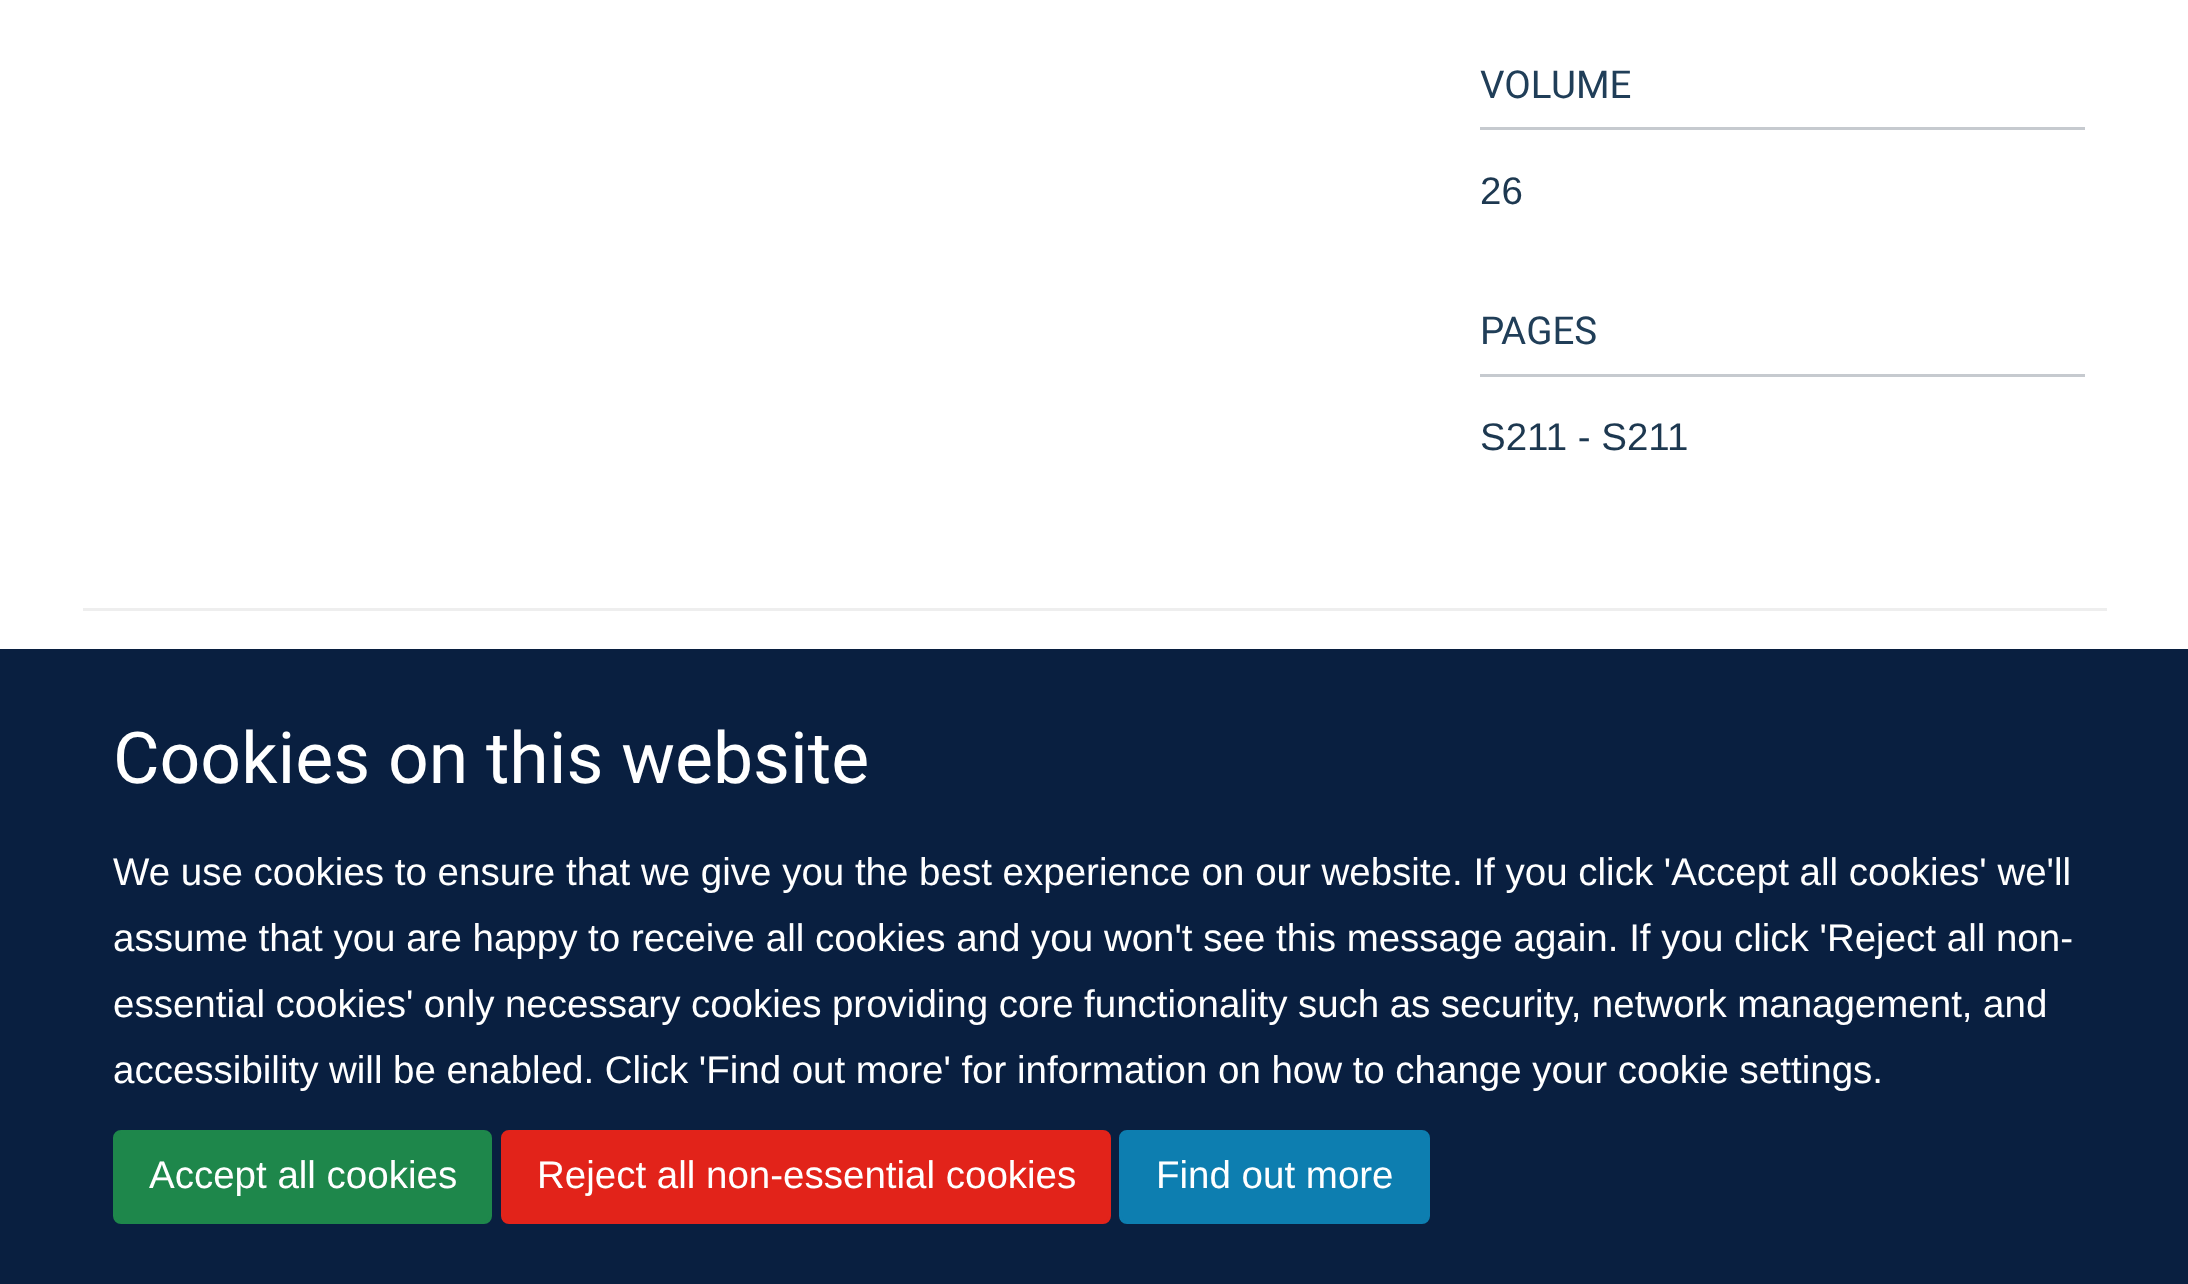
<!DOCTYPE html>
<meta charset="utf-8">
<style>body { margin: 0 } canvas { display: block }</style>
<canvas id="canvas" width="2188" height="1284"></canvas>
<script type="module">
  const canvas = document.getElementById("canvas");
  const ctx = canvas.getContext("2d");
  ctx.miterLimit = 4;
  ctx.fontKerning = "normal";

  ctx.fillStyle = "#ffffff";
  ctx.fillRect(0, 0, 2188, 1284);
  ctx.fillStyle = "#c6cacf";
  ctx.fillRect(1480, 127, 605, 3);
  ctx.font = "38.5px Heebo";
  ctx.fillStyle = "#203e58";
  ctx.fillText("VOLUME", 1480, 98);
  ctx.font = "38.5px Liberation Sans";
  ctx.fillStyle = "#1d3850";
  ctx.fillText("26", 1480, 204);
  ctx.fillStyle = "#c6cacf";
  ctx.fillRect(1480, 374, 605, 3);
  ctx.font = "38.5px Heebo";
  ctx.fillStyle = "#203e58";
  ctx.fillText("PAGES", 1480, 344);
  ctx.font = "38.5px Liberation Sans";
  ctx.fillStyle = "#1d3850";
  ctx.fillText("S211 - S211", 1480, 450);
  ctx.fillStyle = "#eeeeee";
  ctx.fillRect(83, 608, 2024, 3);
  ctx.fillStyle = "#091f40";
  ctx.fillRect(0, 649, 2188, 635);
  ctx.font = "71.5px Heebo";
  ctx.fillStyle = "#ffffff";
  ctx.fillText("Cookies on this website", 113, 783);
  ctx.font = "38.5px Liberation Sans";
  ctx.fillText("We use cookies to ensure that we give you the best experience on our website. If you click 'Accept all cookies' we'll", 113, 885);
  ctx.fillText("assume that you are happy to receive all cookies and you won't see this message again. If you click 'Reject all non-", 113, 951);
  ctx.wordSpacing = "-0.2px";
  ctx.fillText("essential cookies' only necessary cookies providing core functionality such as security, network management, and", 113, 1017);
  ctx.wordSpacing = "-0.1px";
  ctx.fillText("accessibility will be enabled. Click 'Find out more' for information on how to change your cookie settings.", 113, 1083);
  ctx.fillStyle = "#1e874b";
  ctx.beginPath();
  ctx.roundRect(114.5, 1131.5, 376, 91, 6.5);
  ctx.fill();
  ctx.strokeStyle = "#1e874b";
  ctx.lineWidth = 3;
  ctx.stroke();
  ctx.wordSpacing = "0px";
  ctx.fillStyle = "#ffffff";
  ctx.fillText("Accept all cookies", 149, 1188);
  ctx.fillStyle = "#e2231a";
  ctx.beginPath();
  ctx.roundRect(502.5, 1131.5, 607, 91, 6.5);
  ctx.fill();
  ctx.strokeStyle = "#e2231a";
  ctx.stroke();
  ctx.fillStyle = "#ffffff";
  ctx.fillText("Reject all non-essential cookies", 537, 1188);
  ctx.fillStyle = "#0d7eb0";
  ctx.beginPath();
  ctx.roundRect(1120.5, 1131.5, 308, 91, 6.5);
  ctx.fill();
  ctx.strokeStyle = "#0d7eb0";
  ctx.stroke();
  ctx.fillStyle = "#ffffff";
  ctx.fillText("Find out more", 1156, 1188);
</script>
